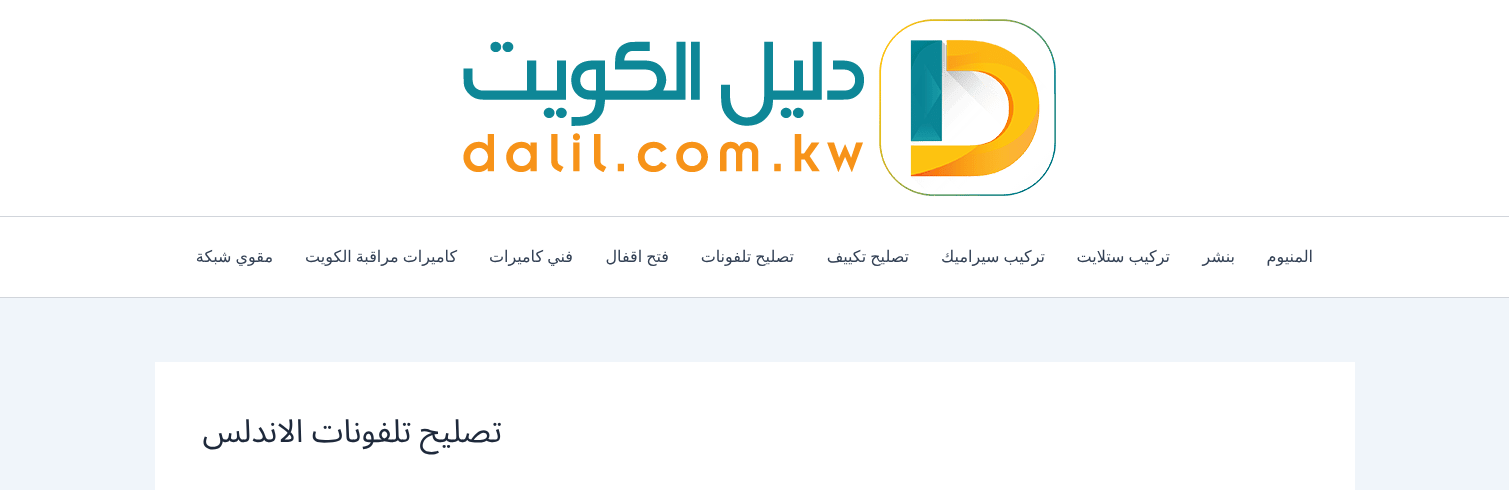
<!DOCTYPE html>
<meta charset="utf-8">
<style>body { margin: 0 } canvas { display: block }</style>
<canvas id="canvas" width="1509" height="490"></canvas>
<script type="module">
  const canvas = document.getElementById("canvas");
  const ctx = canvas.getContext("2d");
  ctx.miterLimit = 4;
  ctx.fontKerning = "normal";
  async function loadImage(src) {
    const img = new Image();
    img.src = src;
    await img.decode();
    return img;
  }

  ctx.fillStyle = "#f0f5fa";
  ctx.fillRect(0, 0, 1509, 490);
  ctx.fillStyle = "#ffffff";
  ctx.fillRect(0, 0, 1509, 216);
  ctx.fillStyle = "#d1d5db";
  ctx.fillRect(0, 216, 1509, 1);
  ctx.drawImage(await loadImage("img1.png"), 463, 19, 593, 178);
  ctx.fillStyle = "#ffffff";
  ctx.fillRect(0, 217, 1509, 80);
  ctx.fillStyle = "#d1d5db";
  ctx.fillRect(0, 297, 1509, 1);
  ctx.direction = "rtl";
  ctx.font = "16px DejaVu Sans";
  ctx.fillStyle = "#334155";
  ctx.fillText("المنيوم", 1313, 262);
  ctx.fillText("بنشر", 1235, 262);
  ctx.wordSpacing = "-1px";
  ctx.fillText("تركيب ستلايت", 1170, 262);
  ctx.fillText("تركيب سيراميك", 1045, 262);
  ctx.fillText("تصليح تكييف", 909, 262);
  ctx.fillText("تصليح تلفونات", 794, 262);
  ctx.fillText("فتح اقفال", 669, 262);
  ctx.fillText("فني كاميرات", 573, 262);
  ctx.fillText("كاميرات مراقبة الكويت", 457, 262);
  ctx.fillText("مقوي شبكة", 273, 262);
  ctx.fillStyle = "#ffffff";
  ctx.fillRect(155, 362, 1200, 128);
  ctx.wordSpacing = "0px";
  ctx.font = "32px Noto Sans Arabic";
  ctx.fillStyle = "#1e293b";
  ctx.fillText("تصليح تلفونات الاندلس", 502, 442);
</script>
